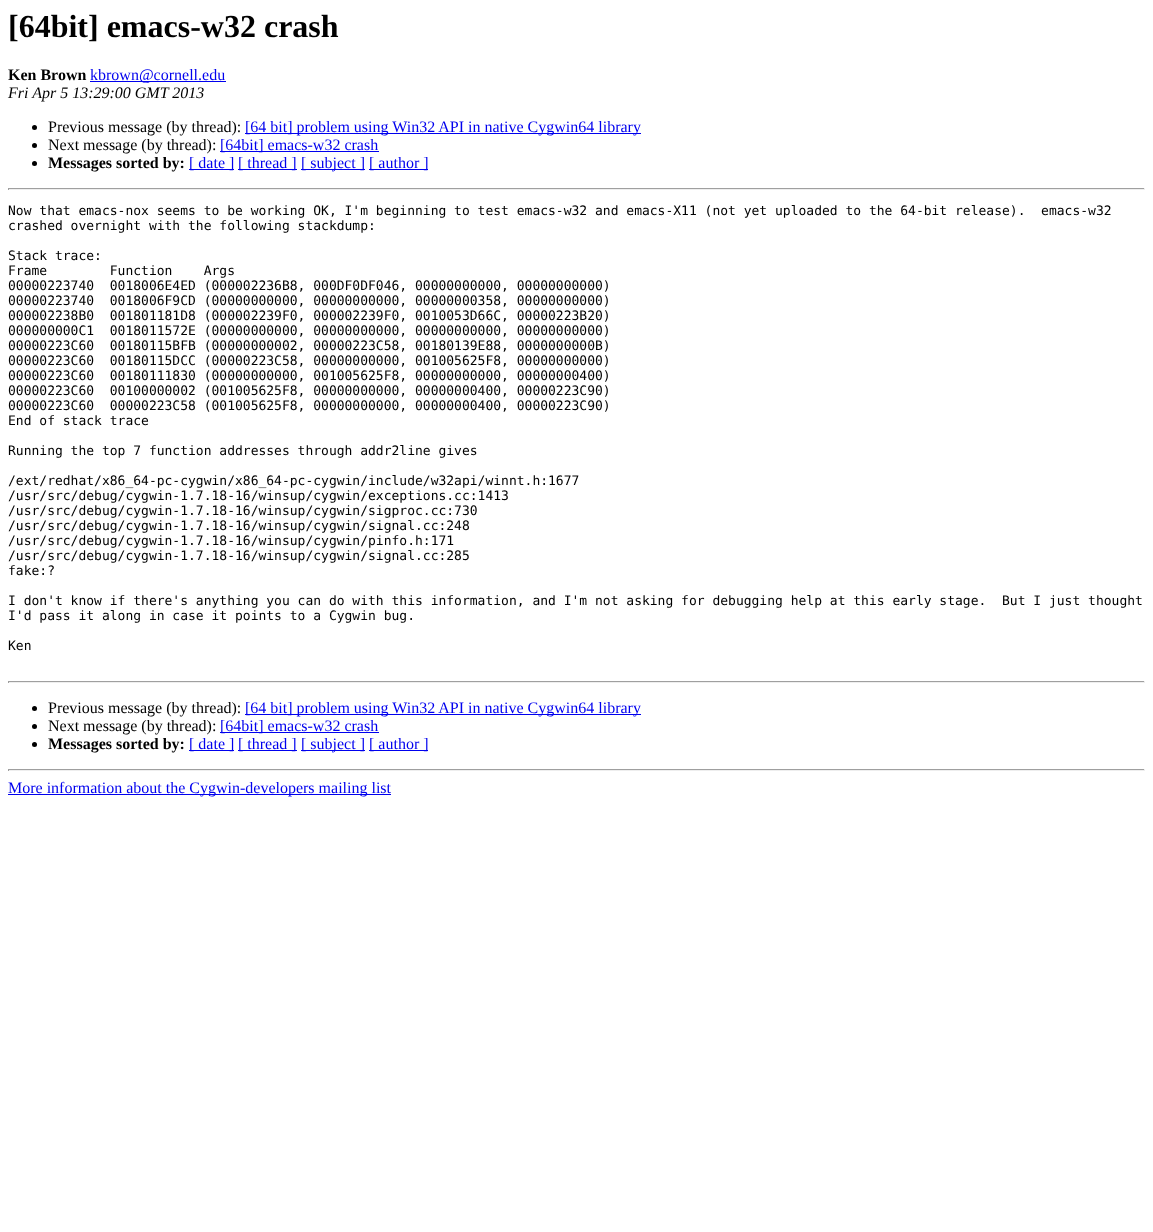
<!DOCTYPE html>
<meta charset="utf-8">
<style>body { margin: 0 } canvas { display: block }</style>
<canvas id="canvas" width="1153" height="1232"></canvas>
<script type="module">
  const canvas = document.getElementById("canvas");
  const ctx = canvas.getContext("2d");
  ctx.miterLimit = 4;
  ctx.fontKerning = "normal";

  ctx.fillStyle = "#ffffff";
  ctx.fillRect(0, 0, 1153, 1232);
  ctx.font = "bold 32px Liberation Serif";
  ctx.fillStyle = "#000000";
  ctx.fillText("[64bit] emacs-w32 crash", 8, 37);
  ctx.font = "bold 16px Liberation Serif";
  ctx.fillText("Ken Brown", 8, 80);
  ctx.fillStyle = "#0000ee";
  ctx.fillRect(90, 81, 136, 1);
  ctx.font = "16px Liberation Serif";
  ctx.fillText("kbrown@cornell.edu", 90, 80);
  ctx.font = "italic 16px Liberation Serif";
  ctx.fillStyle = "#000000";
  ctx.fillText("Fri Apr 5 13:29:00 GMT 2013", 8, 98);
  ctx.beginPath();
  ctx.arc(34.5, 127.5, 2.5, 0, Math.PI * 2);
  ctx.fill();
  ctx.font = "16px Liberation Serif";
  ctx.fillText("Previous message (by thread):", 48, 132);
  ctx.fillStyle = "#0000ee";
  ctx.fillRect(245, 133, 396, 1);
  ctx.fillText("[64 bit] problem using Win32 API in native Cygwin64 library", 245, 132);
  ctx.fillStyle = "#000000";
  ctx.beginPath();
  ctx.arc(34.5, 145.5, 2.5, 0, Math.PI * 2);
  ctx.fill();
  ctx.fillText("Next message (by thread):", 48, 150);
  ctx.fillStyle = "#0000ee";
  ctx.fillRect(220, 151, 159, 1);
  ctx.fillText("[64bit] emacs-w32 crash", 220, 150);
  ctx.fillStyle = "#000000";
  ctx.beginPath();
  ctx.arc(34.5, 163.5, 2.5, 0, Math.PI * 2);
  ctx.fill();
  ctx.font = "bold 16px Liberation Serif";
  ctx.fillText("Messages sorted by:", 48, 168);
  ctx.fillStyle = "#0000ee";
  ctx.fillRect(189, 169, 45, 1);
  ctx.font = "16px Liberation Serif";
  ctx.fillText("[ date ]", 189, 168);
  ctx.fillRect(238, 169, 59, 1);
  ctx.fillText("[ thread ]", 238, 168);
  ctx.fillRect(301, 169, 64, 1);
  ctx.fillText("[ subject ]", 301, 168);
  ctx.fillRect(369, 169, 59, 1);
  ctx.fillText("[ author ]", 369, 168);
  ctx.fillStyle = "#9f9f9f";
  ctx.fillRect(8, 188, 1137, 1);
  ctx.fillStyle = "#eeeeee";
  ctx.fillRect(1144, 188, 1, 2);
  ctx.fillRect(8, 189, 1137, 1);
  ctx.fillStyle = "#9f9f9f";
  ctx.fillRect(8, 188, 1, 2);
  ctx.font = "13px DejaVu Sans Mono";
  ctx.fillStyle = "#000000";
  ctx.fillText("Now that emacs-nox seems to be working OK, I'm beginning to test emacs-w32 and emacs-X11 (not yet uploaded to the 64-bit release).  emacs-w32", 8, 215);
  ctx.fillText("crashed overnight with the following stackdump:", 8, 230);
  ctx.fillText("Stack trace:", 8, 260);
  ctx.fillText("Frame        Function    Args", 8, 275);
  ctx.fillText("00000223740  0018006E4ED (000002236B8, 000DF0DF046, 00000000000, 00000000000)", 8, 290);
  ctx.fillText("00000223740  0018006F9CD (00000000000, 00000000000, 00000000358, 00000000000)", 8, 305);
  ctx.fillText("000002238B0  001801181D8 (000002239F0, 000002239F0, 0010053D66C, 00000223B20)", 8, 320);
  ctx.fillText("000000000C1  0018011572E (00000000000, 00000000000, 00000000000, 00000000000)", 8, 335);
  ctx.fillText("00000223C60  00180115BFB (00000000002, 00000223C58, 00180139E88, 0000000000B)", 8, 350);
  ctx.fillText("00000223C60  00180115DCC (00000223C58, 00000000000, 001005625F8, 00000000000)", 8, 365);
  ctx.fillText("00000223C60  00180111830 (00000000000, 001005625F8, 00000000000, 00000000400)", 8, 380);
  ctx.fillText("00000223C60  00100000002 (001005625F8, 00000000000, 00000000400, 00000223C90)", 8, 395);
  ctx.fillText("00000223C60  00000223C58 (001005625F8, 00000000000, 00000000400, 00000223C90)", 8, 410);
  ctx.fillText("End of stack trace", 8, 425);
  ctx.fillText("Running the top 7 function addresses through addr2line gives", 8, 455);
  ctx.fillText("/ext/redhat/x86_64-pc-cygwin/x86_64-pc-cygwin/include/w32api/winnt.h:1677", 8, 485);
  ctx.fillText("/usr/src/debug/cygwin-1.7.18-16/winsup/cygwin/exceptions.cc:1413", 8, 500);
  ctx.fillText("/usr/src/debug/cygwin-1.7.18-16/winsup/cygwin/sigproc.cc:730", 8, 515);
  ctx.fillText("/usr/src/debug/cygwin-1.7.18-16/winsup/cygwin/signal.cc:248", 8, 530);
  ctx.fillText("/usr/src/debug/cygwin-1.7.18-16/winsup/cygwin/pinfo.h:171", 8, 545);
  ctx.fillText("/usr/src/debug/cygwin-1.7.18-16/winsup/cygwin/signal.cc:285", 8, 560);
  ctx.fillText("fake:?", 8, 575);
  ctx.fillText("I don't know if there's anything you can do with this information, and I'm not asking for debugging help at this early stage.  But I just thought", 8, 605);
  ctx.fillText("I'd pass it along in case it points to a Cygwin bug.", 8, 620);
  ctx.fillText("Ken", 8, 650);
  ctx.fillStyle = "#9f9f9f";
  ctx.fillRect(8, 681, 1137, 1);
  ctx.fillStyle = "#eeeeee";
  ctx.fillRect(1144, 681, 1, 2);
  ctx.fillRect(8, 682, 1137, 1);
  ctx.fillStyle = "#9f9f9f";
  ctx.fillRect(8, 681, 1, 2);
  ctx.fillStyle = "#000000";
  ctx.beginPath();
  ctx.arc(34.5, 708.5, 2.5, 0, Math.PI * 2);
  ctx.fill();
  ctx.font = "16px Liberation Serif";
  ctx.fillText("Previous message (by thread):", 48, 713);
  ctx.fillStyle = "#0000ee";
  ctx.fillRect(245, 714, 396, 1);
  ctx.fillText("[64 bit] problem using Win32 API in native Cygwin64 library", 245, 713);
  ctx.fillStyle = "#000000";
  ctx.beginPath();
  ctx.arc(34.5, 726.5, 2.5, 0, Math.PI * 2);
  ctx.fill();
  ctx.fillText("Next message (by thread):", 48, 731);
  ctx.fillStyle = "#0000ee";
  ctx.fillRect(220, 732, 159, 1);
  ctx.fillText("[64bit] emacs-w32 crash", 220, 731);
  ctx.fillStyle = "#000000";
  ctx.beginPath();
  ctx.arc(34.5, 744.5, 2.5, 0, Math.PI * 2);
  ctx.fill();
  ctx.font = "bold 16px Liberation Serif";
  ctx.fillText("Messages sorted by:", 48, 749);
  ctx.fillStyle = "#0000ee";
  ctx.fillRect(189, 750, 45, 1);
  ctx.font = "16px Liberation Serif";
  ctx.fillText("[ date ]", 189, 749);
  ctx.fillRect(238, 750, 59, 1);
  ctx.fillText("[ thread ]", 238, 749);
  ctx.fillRect(301, 750, 64, 1);
  ctx.fillText("[ subject ]", 301, 749);
  ctx.fillRect(369, 750, 59, 1);
  ctx.fillText("[ author ]", 369, 749);
  ctx.fillStyle = "#9f9f9f";
  ctx.fillRect(8, 769, 1137, 1);
  ctx.fillStyle = "#eeeeee";
  ctx.fillRect(1144, 769, 1, 2);
  ctx.fillRect(8, 770, 1137, 1);
  ctx.fillStyle = "#9f9f9f";
  ctx.fillRect(8, 769, 1, 2);
  ctx.fillStyle = "#0000ee";
  ctx.fillRect(8, 794, 383, 1);
  ctx.fillText("More information about the Cygwin-developers mailing list", 8, 793);
</script>
